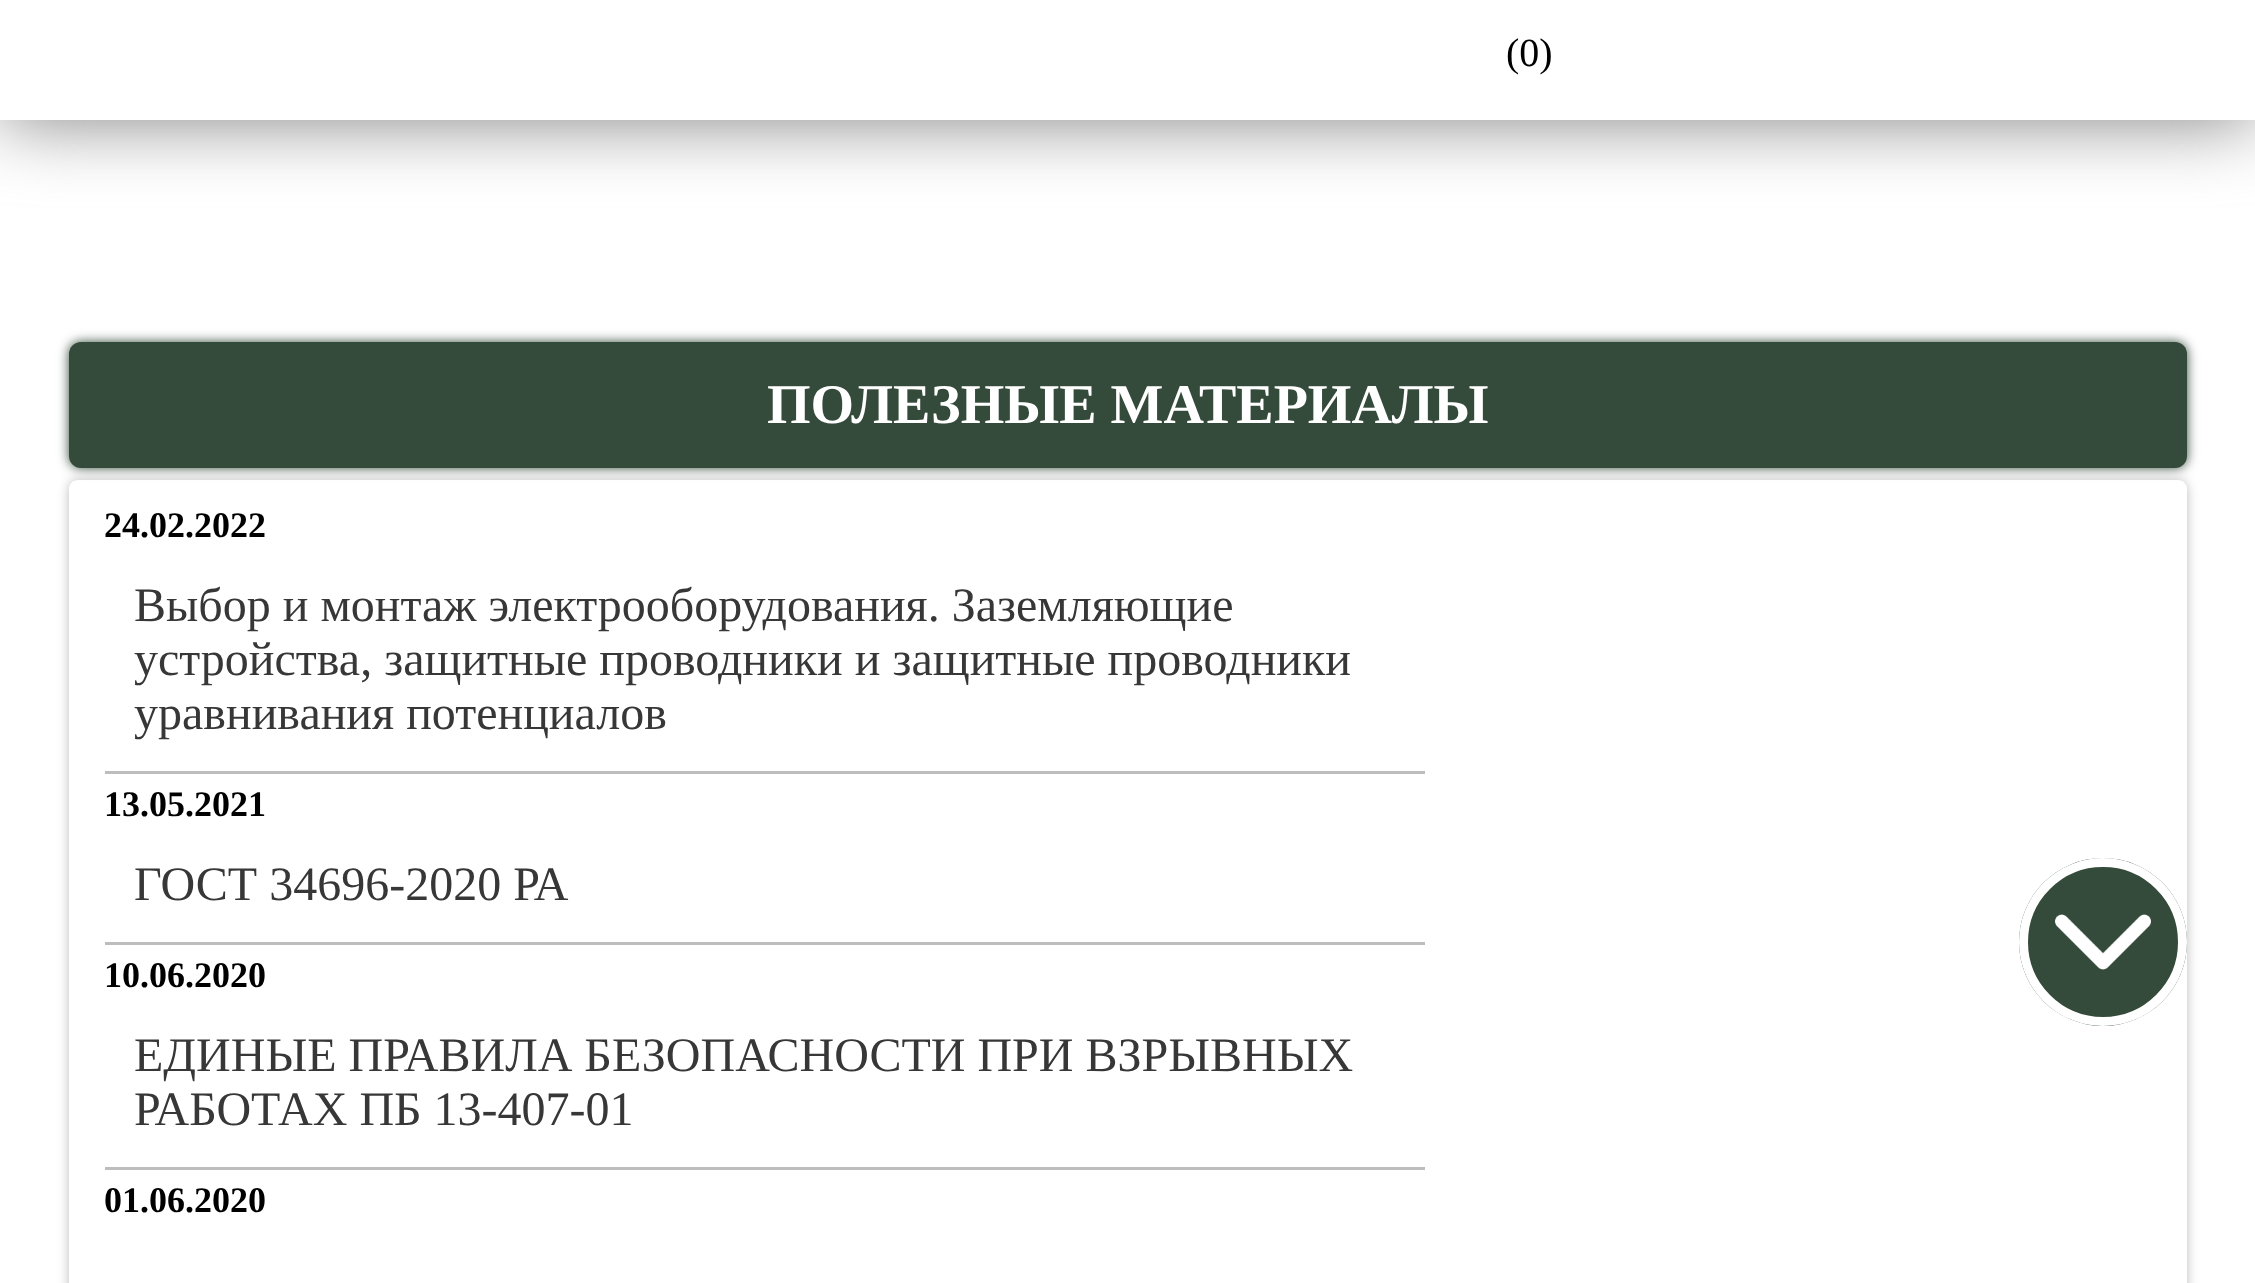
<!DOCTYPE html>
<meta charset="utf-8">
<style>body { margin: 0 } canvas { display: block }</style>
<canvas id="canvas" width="2255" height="1283"></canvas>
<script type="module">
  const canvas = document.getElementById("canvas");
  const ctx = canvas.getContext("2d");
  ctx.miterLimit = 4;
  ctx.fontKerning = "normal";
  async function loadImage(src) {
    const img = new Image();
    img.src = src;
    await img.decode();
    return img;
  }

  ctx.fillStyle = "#ffffff";
  ctx.fillRect(0, 0, 2255, 1283);
  ctx.fillStyle = "#808080";
  ctx.filter = "blur(37.5px)";
  ctx.beginPath();
  ctx.rect(0, 0, 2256, 120);
  ctx.fill();
  ctx.filter = "none";
  ctx.fillStyle = "#ffffff";
  ctx.fillRect(0, 0, 2255, 120);
  ctx.font = "40px Liberation Serif";
  ctx.fillStyle = "#000000";
  ctx.fillText("(0)", 1506, 66);
  ctx.fillStyle = "#344a3a";
  ctx.filter = "blur(6px)";
  ctx.beginPath();
  ctx.roundRect(69, 342, 2118, 126, 12);
  ctx.fill();
  ctx.filter = "none";
  ctx.beginPath();
  ctx.roundRect(69, 342, 2118, 126, 12);
  ctx.fill();
  ctx.font = "bold 56px Liberation Serif";
  ctx.fillStyle = "#ffffff";
  ctx.fillText("ПОЛЕЗНЫЕ МАТЕРИАЛЫ", 767, 423);
  ctx.save();
  ctx.beginPath();
  ctx.moveTo(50, 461);
  ctx.lineTo(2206, 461);
  ctx.lineTo(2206, 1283);
  ctx.lineTo(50, 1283);
  ctx.closePath();
  ctx.moveTo(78, 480);
  ctx.lineTo(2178, 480);
  ctx.bezierCurveTo(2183, 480, 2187, 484, 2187, 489);
  ctx.lineTo(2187, 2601);
  ctx.bezierCurveTo(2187, 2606, 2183, 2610, 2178, 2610);
  ctx.lineTo(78, 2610);
  ctx.bezierCurveTo(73, 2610, 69, 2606, 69, 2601);
  ctx.lineTo(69, 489);
  ctx.bezierCurveTo(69, 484, 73, 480, 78, 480);
  ctx.closePath();
  ctx.clip("evenodd");
  ctx.fillStyle = "#bdbdbd";
  ctx.filter = "blur(6px)";
  ctx.beginPath();
  ctx.roundRect(69, 480, 2118, 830, 9);
  ctx.fill();
  ctx.filter = "none";
  ctx.restore();
  ctx.font = "bold 36px Liberation Serif";
  ctx.fillStyle = "#000000";
  ctx.fillText("24.02.2022", 104, 537);
  ctx.fillStyle = "#bdbdbd";
  ctx.fillRect(105, 771, 1320, 3);
  ctx.font = "48px Liberation Serif";
  ctx.fillStyle = "#373737";
  ctx.fillText("Выбор и монтаж электрооборудования. Заземляющие", 134, 621);
  ctx.fillText("устройства, защитные проводники и защитные проводники", 134, 675);
  ctx.fillText("уравнивания потенциалов", 134, 729);
  ctx.font = "bold 36px Liberation Serif";
  ctx.fillStyle = "#000000";
  ctx.fillText("13.05.2021", 104, 816);
  ctx.fillStyle = "#bdbdbd";
  ctx.fillRect(105, 942, 1320, 3);
  ctx.font = "48px Liberation Serif";
  ctx.fillStyle = "#373737";
  ctx.fillText("ГОСТ 34696-2020 РА", 134, 900);
  ctx.font = "bold 36px Liberation Serif";
  ctx.fillStyle = "#000000";
  ctx.fillText("10.06.2020", 104, 987);
  ctx.fillStyle = "#bdbdbd";
  ctx.fillRect(105, 1167, 1320, 3);
  ctx.font = "48px Liberation Serif";
  ctx.fillStyle = "#373737";
  ctx.fillText("ЕДИНЫЕ ПРАВИЛА БЕЗОПАСНОСТИ ПРИ ВЗРЫВНЫХ", 134, 1071);
  ctx.fillText("РАБОТАХ ПБ 13-407-01", 134, 1125);
  ctx.font = "bold 36px Liberation Serif";
  ctx.fillStyle = "#000000";
  ctx.fillText("01.06.2020", 104, 1212);
  ctx.fillStyle = "#344a3a";
  ctx.beginPath();
  ctx.arc(2103, 942, 84, 0, Math.PI * 2);
  ctx.fill();
  ctx.drawImage(await loadImage("img1.png"), 2055, 914, 96, 56);
  ctx.beginPath();
  ctx.arc(2103, 942, 79.5, 0, Math.PI * 2);
  ctx.strokeStyle = "#ffffff";
  ctx.lineWidth = 9;
  ctx.stroke();
</script>
